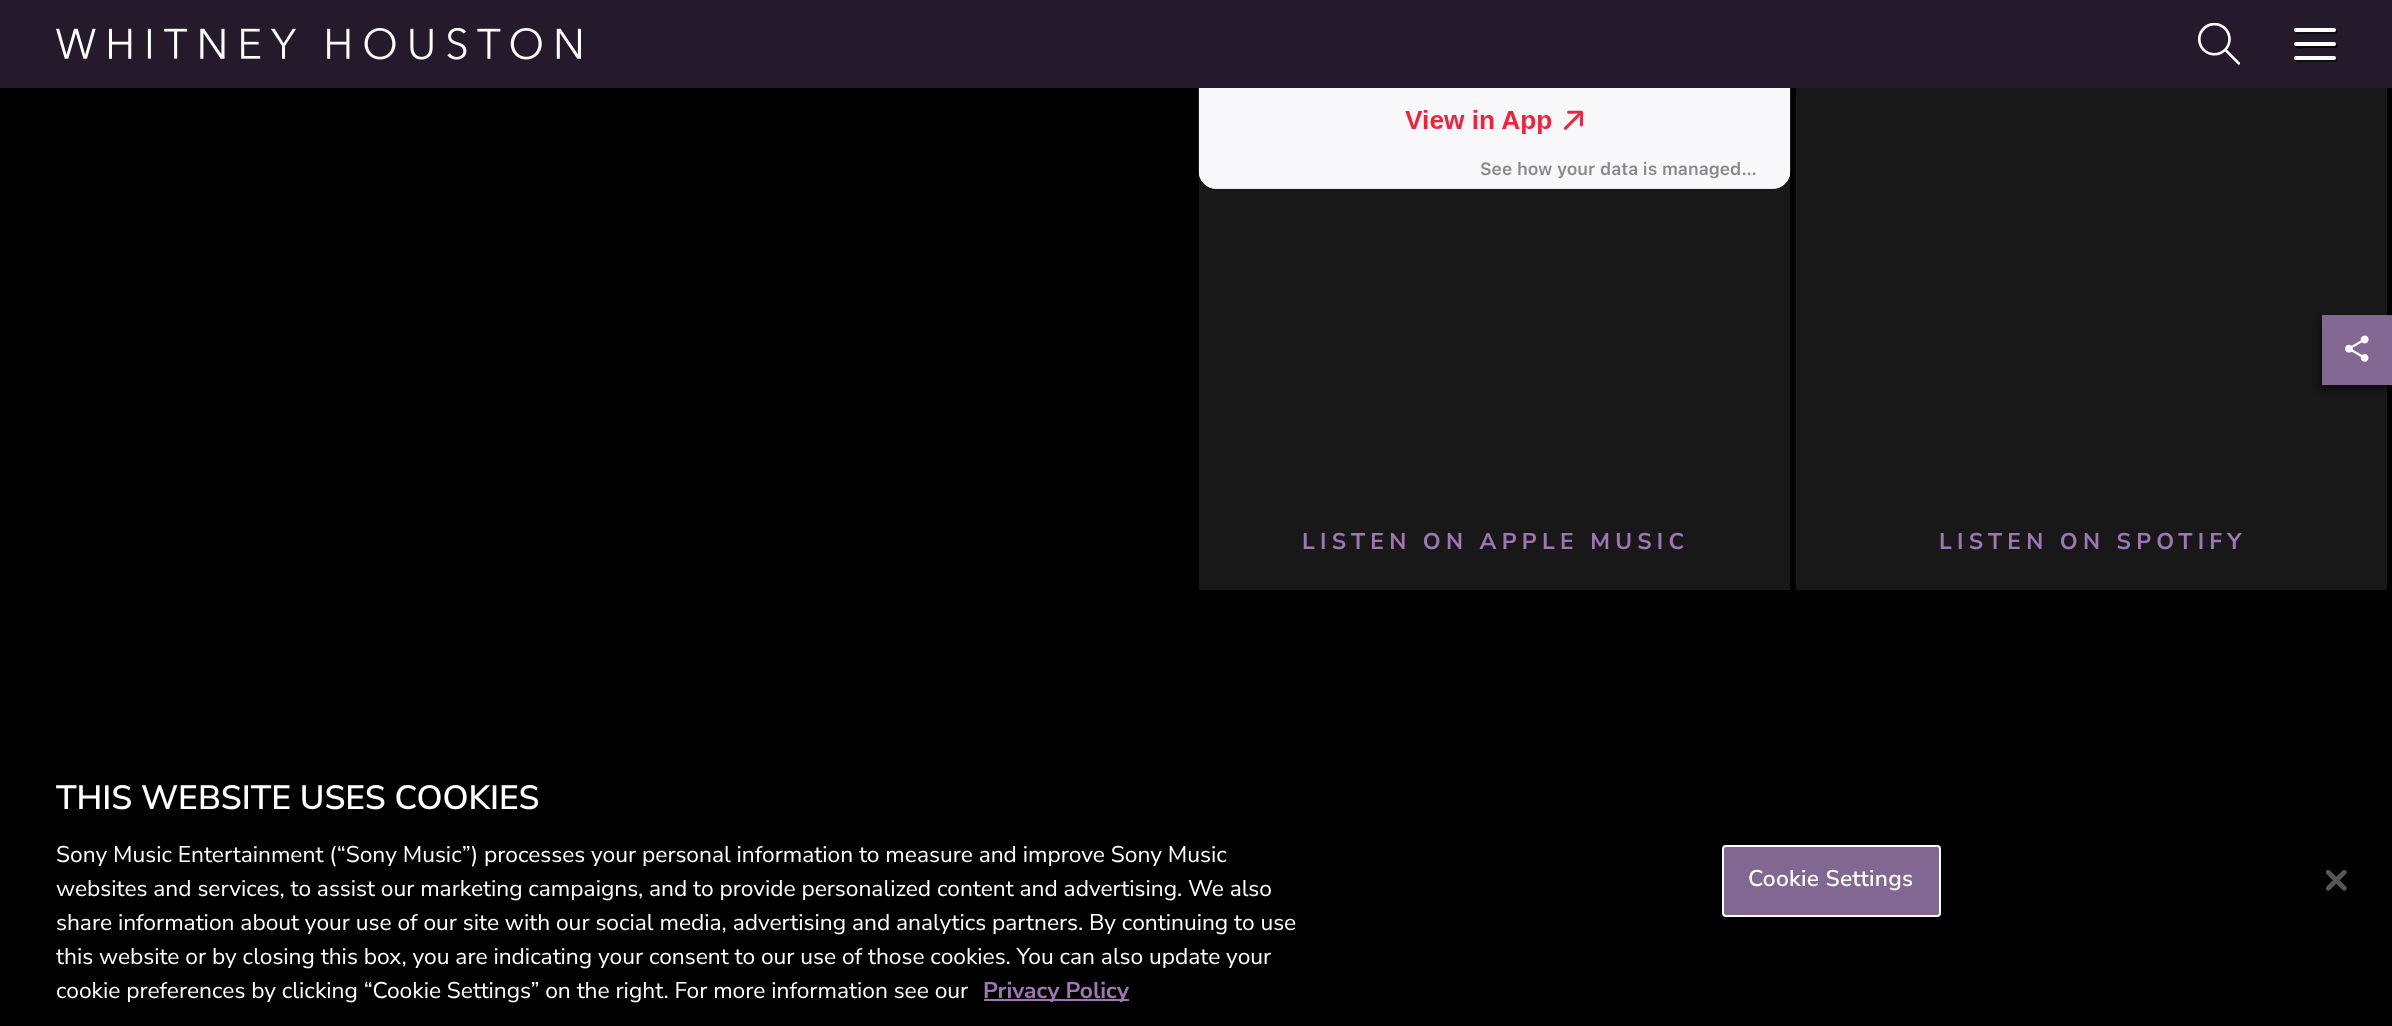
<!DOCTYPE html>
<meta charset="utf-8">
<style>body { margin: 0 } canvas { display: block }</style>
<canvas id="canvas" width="2392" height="1026"></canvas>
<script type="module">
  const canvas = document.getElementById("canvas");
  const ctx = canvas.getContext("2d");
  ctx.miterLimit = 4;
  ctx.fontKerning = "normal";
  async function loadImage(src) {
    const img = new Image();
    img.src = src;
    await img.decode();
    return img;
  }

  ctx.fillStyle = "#000000";
  ctx.fillRect(0, 0, 2392, 1026);
  ctx.fillStyle = "#251a2c";
  ctx.fillRect(0, 0, 2392, 88);
  ctx.drawImage(await loadImage("img1.png"), 56, 28, 525, 32);
  ctx.drawImage(await loadImage("img2.png"), 2198, 23, 42, 42);
  ctx.fillStyle = "#130d16";
  ctx.beginPath();
  ctx.moveTo(2296, 32);
  ctx.bezierCurveTo(2295, 36, 2304, 34, 2304, 34);
  ctx.lineTo(2336, 34);
  ctx.bezierCurveTo(2338, 34, 2339, 30, 2336, 30);
  ctx.bezierCurveTo(2336, 31, 2335, 32, 2334, 32);
  ctx.closePath();
  ctx.fill();
  ctx.fillStyle = "#ffffff";
  ctx.beginPath();
  ctx.roundRect(2294, 28, 42, 4, 2);
  ctx.fill();
  ctx.fillStyle = "#130d16";
  ctx.beginPath();
  ctx.moveTo(2296, 46);
  ctx.bezierCurveTo(2295, 50, 2304, 48, 2304, 48);
  ctx.lineTo(2336, 48);
  ctx.bezierCurveTo(2338, 48, 2339, 44, 2336, 44);
  ctx.bezierCurveTo(2336, 45, 2335, 46, 2334, 46);
  ctx.closePath();
  ctx.fill();
  ctx.fillStyle = "rgba(0, 0, 0, 0.5)";
  ctx.beginPath();
  ctx.moveTo(2296, 46);
  ctx.bezierCurveTo(2295, 50, 2304, 48, 2304, 48);
  ctx.lineTo(2336, 48);
  ctx.bezierCurveTo(2338, 48, 2339, 44, 2336, 44);
  ctx.bezierCurveTo(2336, 45, 2335, 46, 2334, 46);
  ctx.closePath();
  ctx.fill();
  ctx.fillStyle = "#ffffff";
  ctx.beginPath();
  ctx.roundRect(2294, 42, 42, 4, 2);
  ctx.fill();
  ctx.fillStyle = "#130d16";
  ctx.beginPath();
  ctx.moveTo(2296, 60);
  ctx.bezierCurveTo(2295, 64, 2304, 62, 2304, 62);
  ctx.lineTo(2336, 62);
  ctx.bezierCurveTo(2338, 62, 2339, 58, 2336, 58);
  ctx.bezierCurveTo(2336, 59, 2335, 60, 2334, 60);
  ctx.closePath();
  ctx.fill();
  ctx.fillStyle = "#ffffff";
  ctx.beginPath();
  ctx.roundRect(2294, 56, 42, 4, 2);
  ctx.fill();
  ctx.fillStyle = "#181818";
  ctx.fillRect(1796, 88, 591, 502);
  ctx.fillStyle = "rgba(0, 0, 0, 0.5)";
  ctx.filter = "blur(3.5px)";
  ctx.beginPath();
  ctx.rect(2319, 319, 70, 70);
  ctx.fill();
  ctx.filter = "none";
  ctx.fillStyle = "#836793";
  ctx.fillRect(2322, 315, 70, 70);
  ctx.drawImage(await loadImage("img3.png"), 2345, 335, 24, 27);
  ctx.fillStyle = "#181818";
  ctx.fillRect(1199, 175, 591, 415);
  ctx.drawImage(await loadImage("img4.png"), 1198, 88, 593, 101);
  ctx.letterSpacing = "5.25px";
  ctx.font = "bold 22.75px Nunito Sans";
  ctx.fillStyle = "#a075b4";
  ctx.fillText("LISTEN ON APPLE MUSIC", 1302, 549);
  ctx.fillText("LISTEN ON SPOTIFY", 1939, 549);
  ctx.letterSpacing = "0px";
  ctx.font = "600 33.6px Nunito Sans";
  ctx.fillStyle = "#ffffff";
  ctx.fillText("THIS WEBSITE USES COOKIES", 56, 809);
  ctx.font = "22.75px Nunito Sans";
  ctx.fillText("Sony Music Entertainment (“Sony Music”) processes your personal information to measure and improve Sony Music", 56, 862);
  ctx.fillText("websites and services, to assist our marketing campaigns, and to provide personalized content and advertising. We also", 56, 896);
  ctx.fillText("share information about your use of our site with our social media, advertising and analytics partners. By continuing to use", 56, 930);
  ctx.fillText("this website or by closing this box, you are indicating your consent to our use of those cookies. You can also update your", 56, 964);
  ctx.fillText("cookie preferences by clicking “Cookie Settings” on the right. For more information see our", 56, 998);
  ctx.fillStyle = "#a075b4";
  ctx.fillRect(984, 999, 145, 2);
  ctx.font = "bold 22.75px Nunito Sans";
  ctx.fillText("Privacy Policy", 983, 998);
  ctx.fillStyle = "#836793";
  ctx.beginPath();
  ctx.roundRect(1723, 846, 217, 70, 3);
  ctx.fill();
  ctx.strokeStyle = "#ffffff";
  ctx.lineWidth = 2;
  ctx.stroke();
  ctx.letterSpacing = "0.25px";
  ctx.font = "600 22.75px Nunito Sans";
  ctx.fillStyle = "#ffffff";
  ctx.fillText("Cookie Settings", 1748, 886);
  ctx.drawImage(await loadImage("img5.png"), 2326, 870, 21, 21);
</script>
